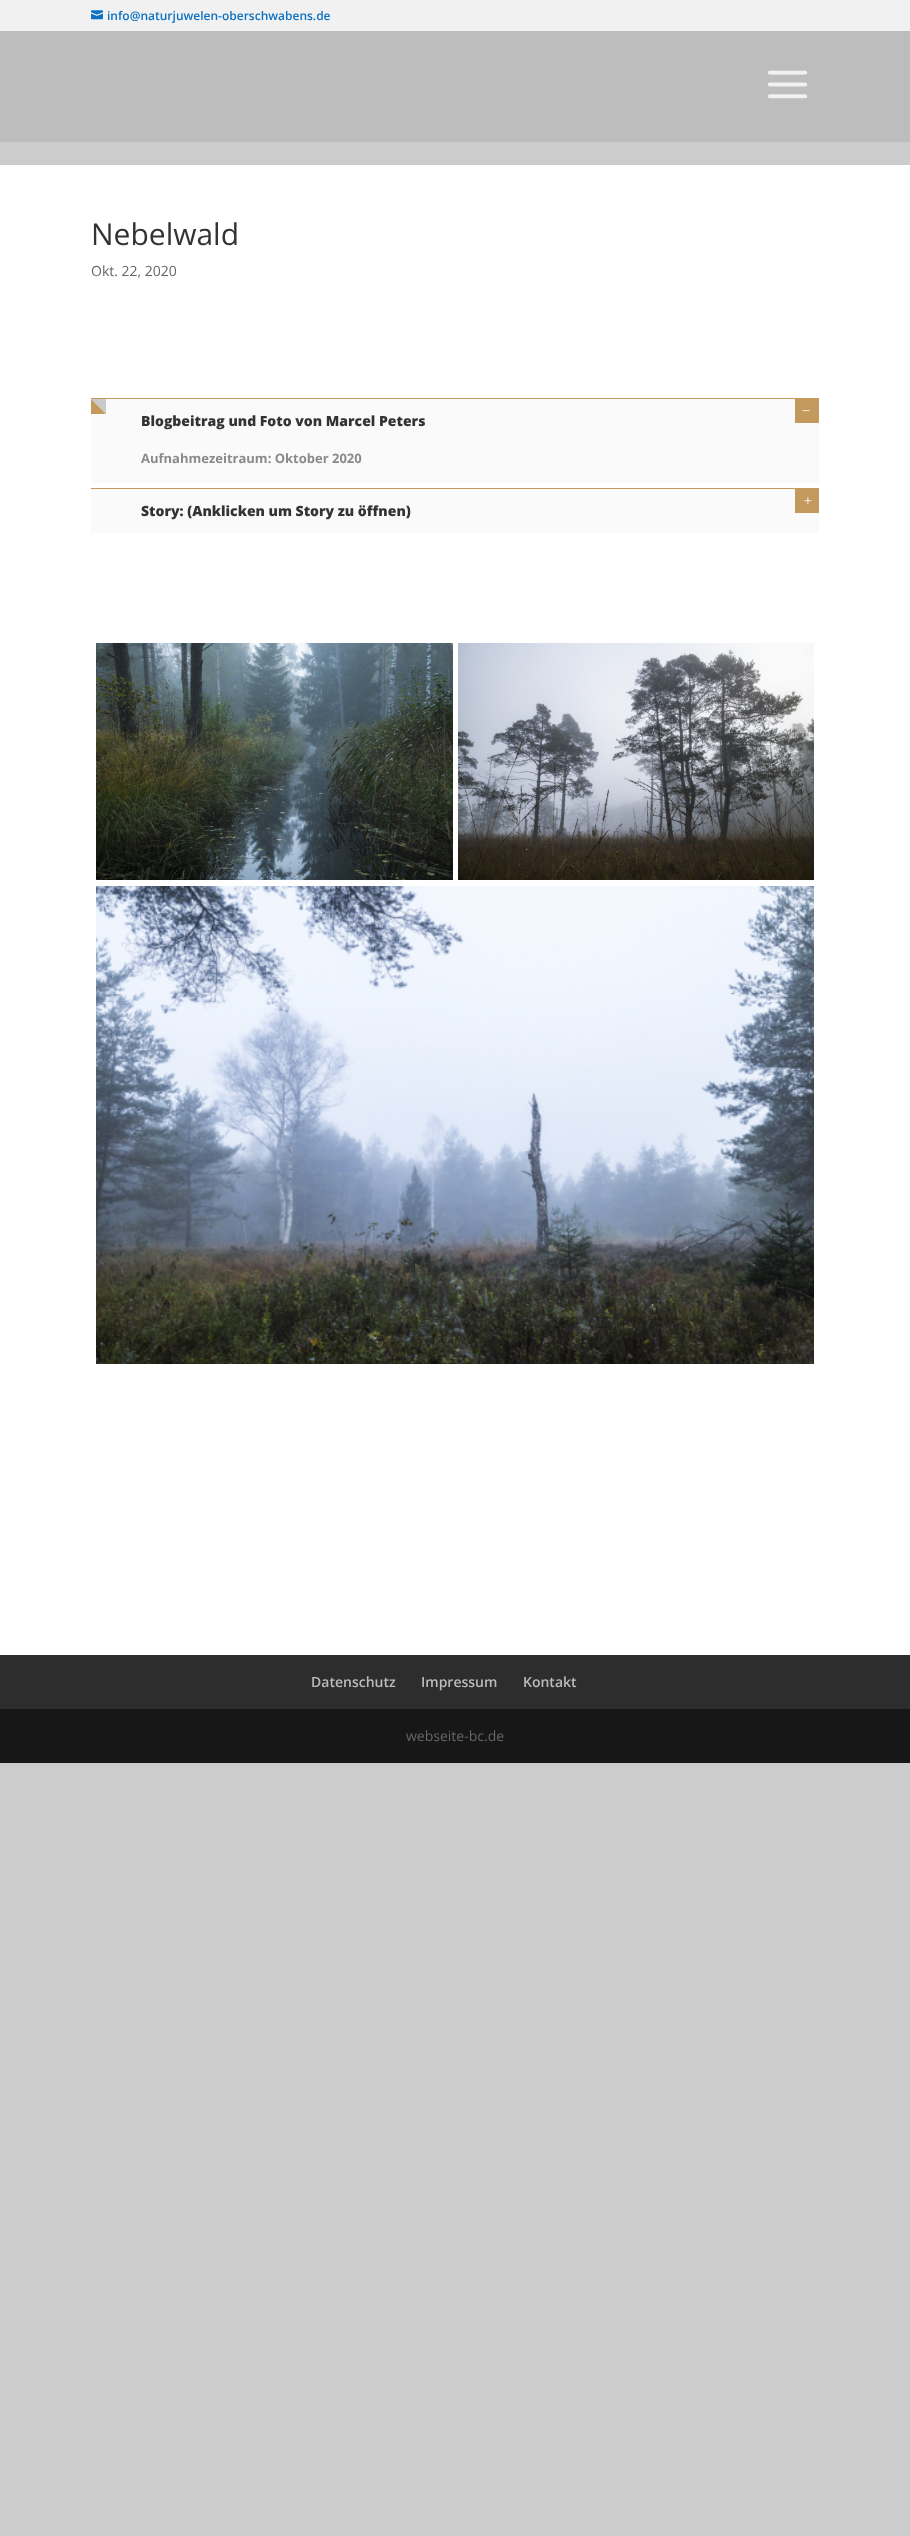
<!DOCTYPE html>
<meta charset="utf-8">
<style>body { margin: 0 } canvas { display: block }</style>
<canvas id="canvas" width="910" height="2536"></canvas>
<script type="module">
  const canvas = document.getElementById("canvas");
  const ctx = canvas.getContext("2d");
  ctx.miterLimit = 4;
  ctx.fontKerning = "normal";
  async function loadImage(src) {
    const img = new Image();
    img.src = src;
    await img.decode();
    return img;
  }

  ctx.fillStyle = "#cccccc";
  ctx.fillRect(0, 0, 910, 2536);
  ctx.fillStyle = "#f1f1f1";
  ctx.fillRect(0, 0, 910, 31);
  ctx.drawImage(await loadImage("img1.png"), 91, 10, 12, 10);
  ctx.font = "600 12px Open Sans";
  ctx.fillStyle = "#0c71c3";
  ctx.fillText("info@naturjuwelen-oberschwabens.de", 107, 20);
  ctx.fillStyle = "#bdbdbd";
  ctx.fillRect(0, 31, 910, 111);
  ctx.drawImage(await loadImage("img2.png"), 767, 70, 41, 29);
  ctx.fillStyle = "#ffffff";
  ctx.fillRect(0, 165, 910, 1490);
  ctx.font = "30px Open Sans";
  ctx.fillStyle = "#333333";
  ctx.fillText("Nebelwald", 91, 245);
  ctx.font = "14px Open Sans";
  ctx.fillStyle = "#666666";
  ctx.fillText("Okt. 22, 2020", 91, 276);
  ctx.fillStyle = "#c49a5c";
  ctx.fillRect(91, 398, 728, 1);
  ctx.fillStyle = "#fafafa";
  ctx.fillRect(91, 399, 728, 84);
  ctx.fillStyle = "#cacaca";
  ctx.beginPath();
  ctx.moveTo(91, 399);
  ctx.lineTo(106, 399);
  ctx.lineTo(106, 414);
  ctx.closePath();
  ctx.fill();
  ctx.fillStyle = "#c49a5c";
  ctx.beginPath();
  ctx.moveTo(91, 414);
  ctx.lineTo(91, 399);
  ctx.lineTo(106, 414);
  ctx.closePath();
  ctx.fill();
  ctx.font = "800 14px Open Sans";
  ctx.fillStyle = "#333333";
  ctx.fillText("Blogbeitrag und Foto von Marcel Peters", 141, 426);
  ctx.fillStyle = "#c49a5c";
  ctx.fillRect(795, 399, 24, 24);
  ctx.drawImage(await loadImage("img3.png"), 802, 410, 8, 2);
  ctx.font = "bold 13px Open Sans";
  ctx.fillStyle = "#8a8a8a";
  ctx.fillText("Aufnahmezeitraum: Oktober 2020", 141, 463);
  ctx.fillStyle = "#c49a5c";
  ctx.fillRect(91, 488, 728, 1);
  ctx.fillStyle = "#fafafa";
  ctx.fillRect(91, 489, 728, 44);
  ctx.font = "800 14px Open Sans";
  ctx.fillStyle = "#333333";
  ctx.fillText("Story: (Anklicken um Story zu öffnen)", 141, 516);
  ctx.fillStyle = "#c49a5c";
  ctx.fillRect(795, 489, 24, 24);
  ctx.drawImage(await loadImage("img4.png"), 804, 497, 8, 8);
  ctx.drawImage(await loadImage("img5.png"), 96, 643, 357, 237);
  ctx.drawImage(await loadImage("img6.png"), 458, 643, 356, 237);
  ctx.drawImage(await loadImage("img7.png"), 96, 886, 718, 478);
  ctx.fillStyle = "#2d2d2d";
  ctx.fillRect(0, 1655, 910, 54);
  ctx.font = "600 14px Open Sans";
  ctx.fillStyle = "#bbbbbb";
  ctx.fillText("Datenschutz", 311, 1687);
  ctx.fillText("Impressum", 421, 1687);
  ctx.fillText("Kontakt", 523, 1687);
  ctx.fillStyle = "#171717";
  ctx.fillRect(0, 1709, 910, 54);
  ctx.font = "14px Open Sans";
  ctx.fillStyle = "#666666";
  ctx.fillText("webseite-bc.de", 406, 1741);
</script>
